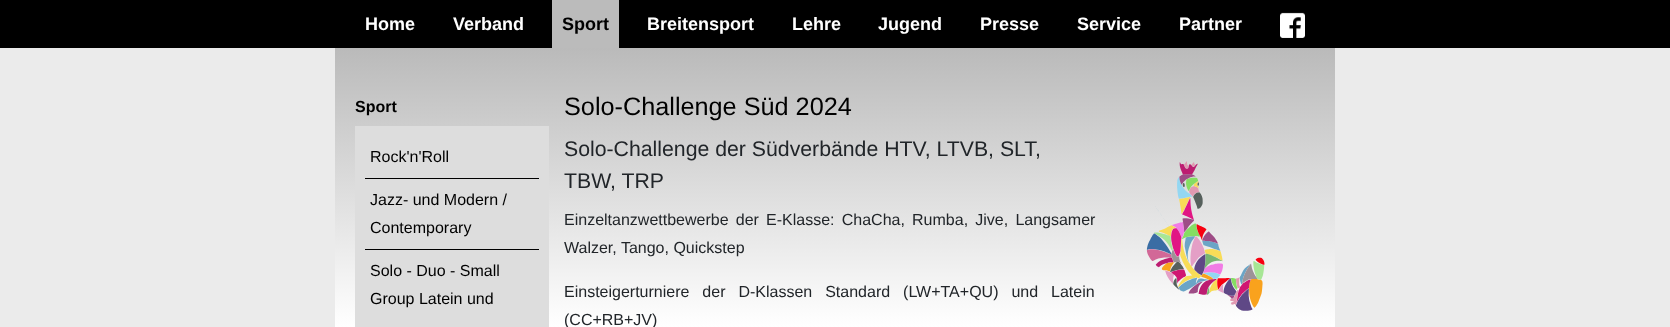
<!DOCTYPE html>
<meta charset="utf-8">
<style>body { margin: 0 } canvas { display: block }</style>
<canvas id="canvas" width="1670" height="327"></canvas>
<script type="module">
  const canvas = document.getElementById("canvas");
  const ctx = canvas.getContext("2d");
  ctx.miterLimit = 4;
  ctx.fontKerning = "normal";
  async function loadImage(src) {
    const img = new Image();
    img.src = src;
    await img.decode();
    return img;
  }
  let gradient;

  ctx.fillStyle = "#ebebeb";
  ctx.fillRect(0, 0, 1670, 327);
  ctx.fillStyle = "#000000";
  ctx.fillRect(0, 0, 1670, 48);
  ctx.font = "bold 18px Liberation Sans";
  ctx.fillStyle = "#ffffff";
  ctx.fillText("Home", 365, 30);
  ctx.fillText("Verband", 453, 30);
  ctx.fillStyle = "#bbbbbb";
  ctx.fillRect(552, 0, 67, 48);
  ctx.fillStyle = "#000000";
  ctx.fillText("Sport", 562, 30);
  ctx.fillStyle = "#ffffff";
  ctx.fillText("Breitensport", 647, 30);
  ctx.fillText("Lehre", 792, 30);
  ctx.fillText("Jugend", 878, 30);
  ctx.fillText("Presse", 980, 30);
  ctx.fillText("Service", 1077, 30);
  ctx.fillText("Partner", 1179, 30);
  ctx.drawImage(await loadImage("img1.png"), 1280, 12, 25, 26);
  gradient = ctx.createLinearGradient(835, 40, 835, 327);
  gradient.addColorStop(0, "#b8b8b8");
  gradient.addColorStop(1, "#ffffff");
  ctx.fillStyle = gradient;
  ctx.fillRect(335, 48, 1000, 279);
  ctx.font = "bold 16px Liberation Sans";
  ctx.fillStyle = "#000000";
  ctx.fillText("Sport", 355, 112);
  ctx.fillStyle = "#dddddd";
  ctx.fillRect(355, 126, 194, 201);
  ctx.font = "16px Liberation Sans";
  ctx.fillStyle = "#000000";
  ctx.fillText("Rock'n'Roll", 370, 162);
  ctx.fillRect(365, 178, 174, 1);
  ctx.fillText("Jazz- und Modern /", 370, 205);
  ctx.fillText("Contemporary", 370, 233);
  ctx.fillRect(365, 249, 174, 1);
  ctx.fillText("Solo - Duo - Small", 370, 276);
  ctx.fillText("Group Latein und", 370, 304);
  ctx.font = "25.25px Liberation Sans";
  ctx.fillText("Solo-Challenge Süd 2024", 564, 115);
  ctx.font = "21.25px Liberation Sans";
  ctx.fillStyle = "#212529";
  ctx.fillText("Solo-Challenge der Südverbände HTV, LTVB, SLT,", 564, 156);
  ctx.fillText("TBW, TRP", 564, 188);
  ctx.drawImage(await loadImage("img2.png"), 1146, 161, 119, 150);
  ctx.wordSpacing = "2.75px";
  ctx.font = "16px Liberation Sans";
  ctx.fillText("Einzeltanzwettbewerbe der E-Klasse: ChaCha, Rumba, Jive, Langsamer", 564, 225);
  ctx.wordSpacing = "0px";
  ctx.fillText("Walzer, Tango, Quickstep", 564, 253);
  ctx.wordSpacing = "8.5px";
  ctx.fillText("Einsteigerturniere der D-Klassen Standard (LW+TA+QU) und Latein", 564, 297);
  ctx.wordSpacing = "0px";
  ctx.fillText("(CC+RB+JV)", 564, 325);
</script>
